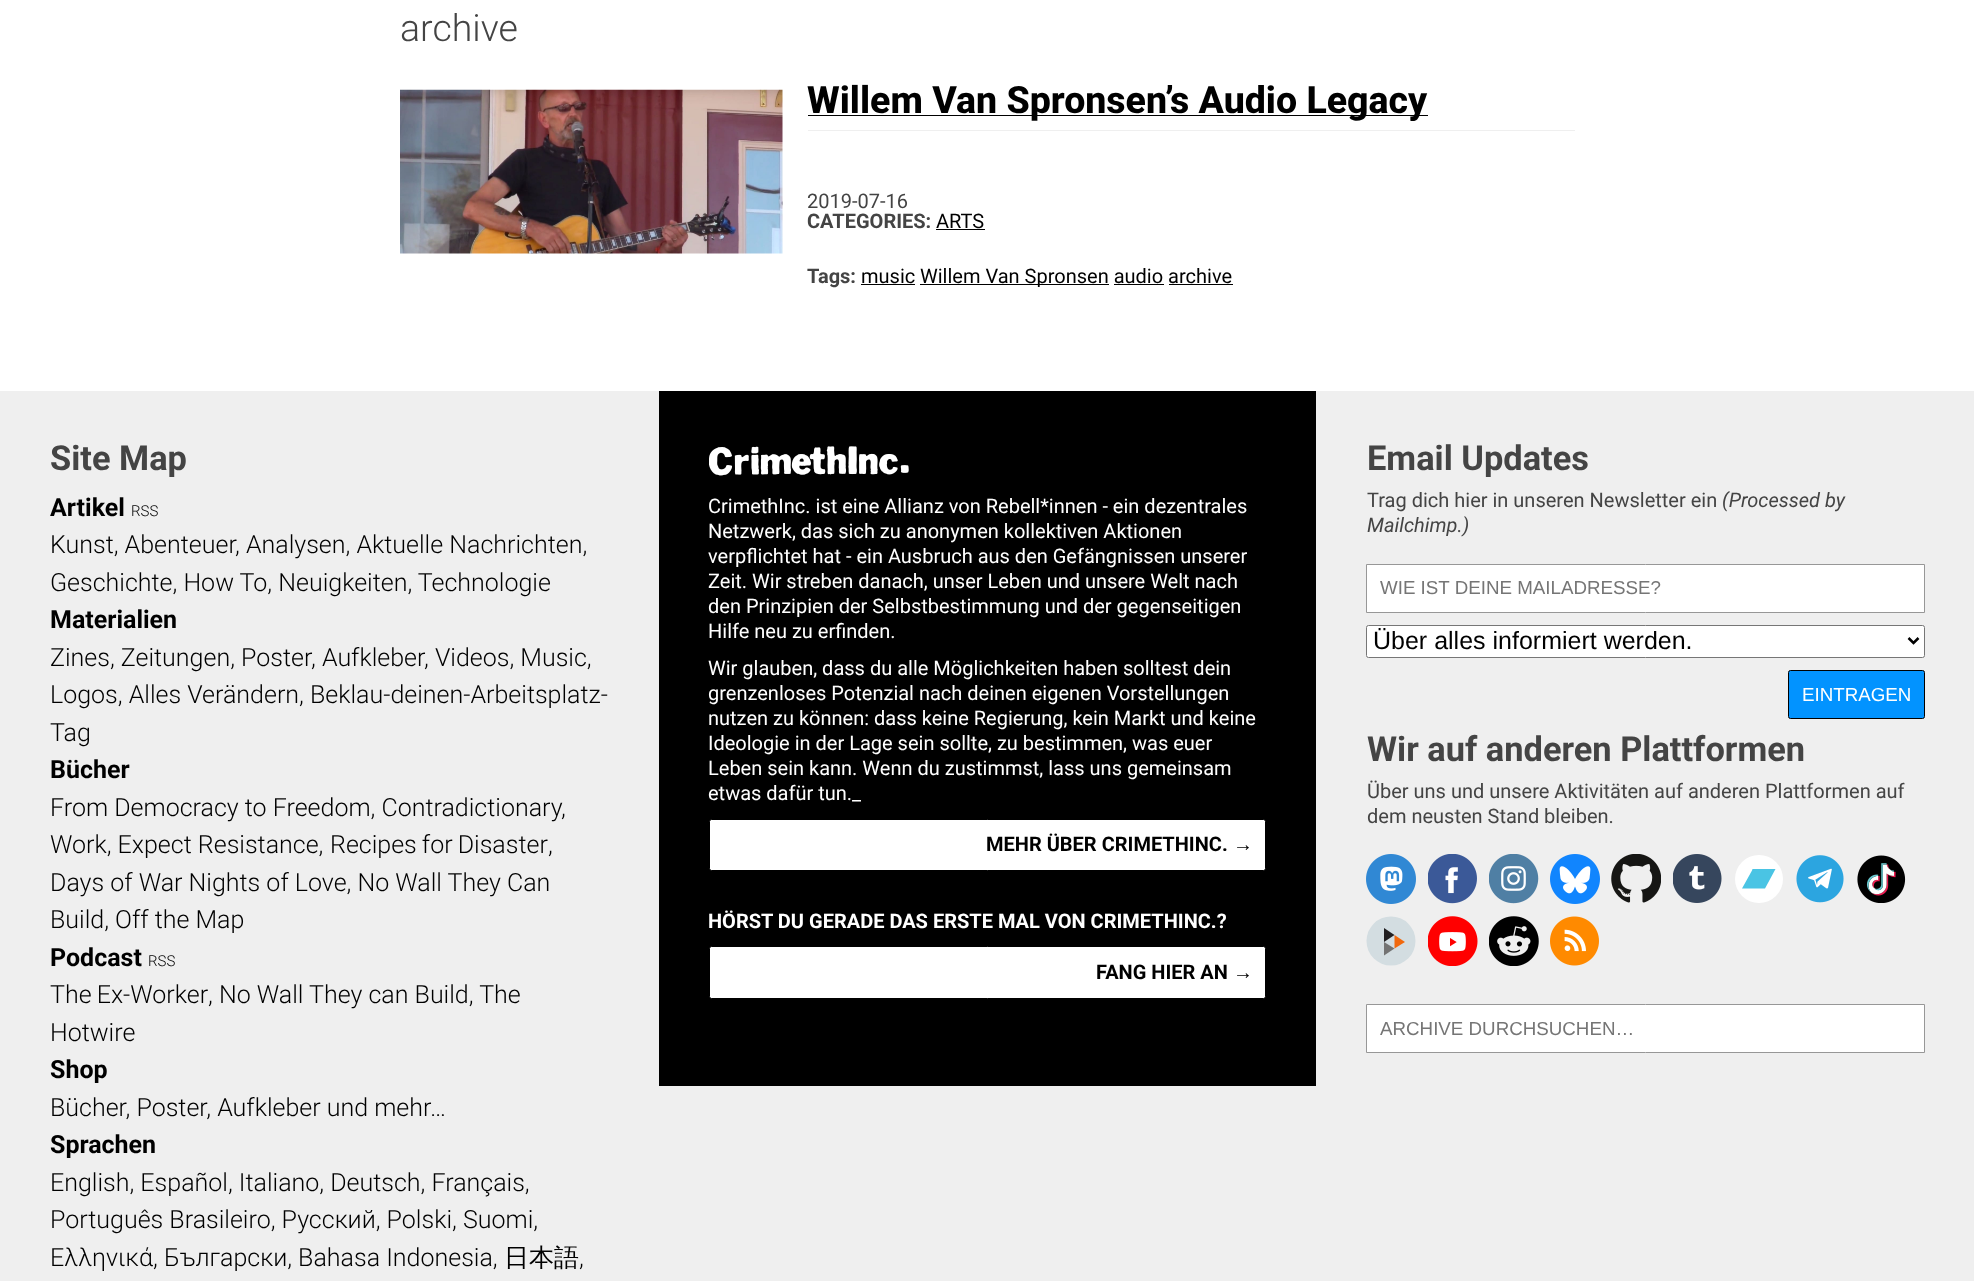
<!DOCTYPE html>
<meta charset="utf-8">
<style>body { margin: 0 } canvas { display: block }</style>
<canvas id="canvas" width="1974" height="1281"></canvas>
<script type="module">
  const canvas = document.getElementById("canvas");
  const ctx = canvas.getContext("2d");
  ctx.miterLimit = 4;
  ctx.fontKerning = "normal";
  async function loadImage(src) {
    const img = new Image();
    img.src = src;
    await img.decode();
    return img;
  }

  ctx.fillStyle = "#ffffff";
  ctx.fillRect(0, 0, 1974, 1281);
  ctx.font = "300 37.5px Roboto";
  ctx.fillStyle = "#444444";
  ctx.fillText("archive", 400, 41);
  ctx.drawImage(await loadImage("img1.png"), 400, 89, 383, 165);
  ctx.fillStyle = "#efefef";
  ctx.fillRect(808, 130, 767, 1);
  ctx.fillStyle = "#000000";
  ctx.fillRect(808, 115, 620, 1);
  ctx.font = "800 37.5px Roboto";
  ctx.fillText("Willem Van Spronsen’s Audio Legacy", 807, 113);
  ctx.font = "20px Roboto";
  ctx.fillStyle = "#444444";
  ctx.fillText("2019-07-16", 807, 208);
  ctx.font = "bold 20px Roboto";
  ctx.fillText("CATEGORIES:", 807, 228);
  ctx.font = "20px Roboto";
  ctx.fillStyle = "#000000";
  ctx.fillText("ARTS", 936, 228);
  ctx.fillRect(936, 229, 49, 1);
  ctx.font = "bold 20px Roboto";
  ctx.fillStyle = "#444444";
  ctx.fillText("Tags:", 807, 283);
  ctx.font = "20px Roboto";
  ctx.fillStyle = "#000000";
  ctx.fillText("music", 861, 283);
  ctx.fillRect(861, 284, 54, 1);
  ctx.fillRect(920, 284, 189, 1);
  ctx.fillText("Willem Van Spronsen audio archive", 920, 283);
  ctx.fillRect(1114, 284, 50, 1);
  ctx.fillRect(1169, 284, 64, 1);
  ctx.fillStyle = "#efefef";
  ctx.fillRect(0, 391, 1974, 890);
  ctx.font = "bold 34.4px Roboto";
  ctx.fillStyle = "#444444";
  ctx.fillText("Site Map", 50, 470);
  ctx.font = "bold 25px Roboto";
  ctx.fillStyle = "#000000";
  ctx.fillText("Artikel", 50, 516);
  ctx.font = "300 15px Roboto";
  ctx.fillText("RSS", 131, 516);
  ctx.font = "300 25px Roboto";
  ctx.fillText("Kunst, Abenteuer", 50, 553);
  ctx.fillText(", Analysen, Aktuelle Nachrichten,", 235, 553);
  ctx.fillText("Geschichte, How To, Neuigkeiten, Technologie", 50, 591);
  ctx.font = "bold 25px Roboto";
  ctx.fillText("Materialien", 50, 628);
  ctx.font = "300 25px Roboto";
  ctx.fillText("Zines, Zeitungen, Poster", 50, 666);
  ctx.fillText(", Aufkleber", 311, 666);
  ctx.fillText(", Videos, Music,", 424, 666);
  ctx.fillText("Logos, Alles Verändern, Beklau-deinen-Arbeitsplatz-", 50, 703);
  ctx.fillText("Tag", 50, 741);
  ctx.font = "bold 25px Roboto";
  ctx.fillText("Bücher", 50, 778);
  ctx.font = "300 25px Roboto";
  ctx.fillText("From Democracy to Freedom, Contradictionary", 50, 816);
  ctx.fillText(",", 561, 816);
  ctx.fillText("Work, Expect Resistance,", 50, 853);
  ctx.wordSpacing = "-1px";
  ctx.fillText("Recipes for Disaster", 330, 853);
  ctx.wordSpacing = "0px";
  ctx.fillText(",", 548, 853);
  ctx.fillText("Days of War Nights of Love, No Wall They Can", 50, 891);
  ctx.fillText("Build, Off the Map", 50, 928);
  ctx.font = "bold 25px Roboto";
  ctx.fillText("Podcast", 50, 966);
  ctx.font = "300 15px Roboto";
  ctx.fillText("RSS", 148, 966);
  ctx.wordSpacing = "-1px";
  ctx.font = "300 25px Roboto";
  ctx.fillText("The Ex-Worker", 50, 1003);
  ctx.wordSpacing = "0px";
  ctx.fillText(", No Wall They can Build, The", 208, 1003);
  ctx.fillText("Hotwire", 50, 1041);
  ctx.font = "bold 25px Roboto";
  ctx.fillText("Shop", 50, 1078);
  ctx.font = "300 25px Roboto";
  ctx.fillText("Bücher, Poster, Aufkleber und mehr…", 50, 1116);
  ctx.font = "bold 25px Roboto";
  ctx.fillText("Sprachen", 50, 1153);
  ctx.font = "300 25px Roboto";
  ctx.fillText("English, Español, Italiano, Deutsch, Français,", 50, 1191);
  ctx.fillText("Português Brasileiro, Русский, Polski, Suomi,", 50, 1228);
  ctx.fillText("Ελληνικά, Български, Bahasa Indonesia,", 50, 1266);
  ctx.font = "500 25px WenQuanYi Zen Hei";
  ctx.fillText("日本語", 504, 1266);
  ctx.font = "300 25px Roboto";
  ctx.fillText(",", 579, 1266);
  ctx.fillRect(659, 391, 657, 695);
  ctx.drawImage(await loadImage("img2.png"), 709, 446, 200, 30);
  ctx.font = "20px Roboto";
  ctx.fillStyle = "#ffffff";
  ctx.fillText("CrimethInc. ist eine Allianz von Rebell*innen - ein dezentrales", 708, 513);
  ctx.fillText("Netzwerk, das sich zu anonymen kollektiven Aktionen", 708, 538);
  ctx.fillText("verpflichtet hat - ein Ausbruch aus den Gefängnissen unserer", 708, 563);
  ctx.fillText("Zeit. Wir streben danach, unser Leben und unsere Welt nach", 708, 588);
  ctx.fillText("den Prinzipien der Selbstbestimmung und der gegenseitigen", 708, 613);
  ctx.fillText("Hilfe neu zu erfinden.", 708, 638);
  ctx.fillText("Wir glauben, dass du alle Möglichkeiten haben solltest dein", 708, 675);
  ctx.fillText("grenzenloses Potenzial nach deinen eigenen Vorstellungen", 708, 700);
  ctx.fillText("nutzen zu können: dass keine Regierung, kein Markt und keine", 708, 725);
  ctx.fillText("Ideologie in der Lage sein sollte, zu bestimmen, was euer", 708, 750);
  ctx.fillText("Leben sein kann. Wenn du zustimmst, lass uns gemeinsam", 708, 775);
  ctx.fillText("etwas dafür tun._", 708, 800);
  ctx.beginPath();
  ctx.roundRect(709.5, 819.5, 556, 51, 2);
  ctx.fill();
  ctx.strokeStyle = "#000000";
  ctx.stroke();
  ctx.font = "bold 20px Roboto";
  ctx.fillStyle = "#000000";
  ctx.fillText("MEHR ÜBER CRIMETHINC.", 986, 851);
  ctx.font = "bold 20px Liberation Sans";
  ctx.fillText("→", 1233, 851);
  ctx.font = "bold 20px Roboto";
  ctx.fillStyle = "#ffffff";
  ctx.fillText("HÖRST DU GERADE DAS ERSTE MAL VON CRIMETHINC.?", 708, 928);
  ctx.beginPath();
  ctx.roundRect(709.5, 946.5, 556, 52, 2);
  ctx.fill();
  ctx.stroke();
  ctx.fillStyle = "#000000";
  ctx.fillText("FANG HIER AN", 1096, 979);
  ctx.font = "bold 20px Liberation Sans";
  ctx.fillText("→", 1233, 979);
  ctx.font = "bold 34.4px Roboto";
  ctx.fillStyle = "#444444";
  ctx.fillText("Email Updates", 1367, 470);
  ctx.font = "20px Roboto";
  ctx.fillText("Trag dich hier in unseren Newsletter ein", 1367, 507);
  ctx.font = "italic 20px Roboto";
  ctx.fillText("(Processed by", 1722, 507);
  ctx.fillText("Mailchimp.)", 1367, 532);
  ctx.fillStyle = "#ffffff";
  ctx.beginPath();
  ctx.rect(1366.5, 564.5, 558, 48);
  ctx.fill();
  ctx.strokeStyle = "#979797";
  ctx.stroke();
  ctx.font = "18.75px Liberation Sans";
  ctx.fillStyle = "#757575";
  ctx.fillText("WIE IST DEINE MAILADRESSE?", 1380, 594);
  ctx.fillStyle = "#ffffff";
  ctx.beginPath();
  ctx.roundRect(1366.5, 625.5, 558, 32, 2);
  ctx.fill();
  ctx.strokeStyle = "#767676";
  ctx.stroke();
  ctx.beginPath();
  ctx.moveTo(1908.5, 638);
  ctx.lineTo(1913.5, 643);
  ctx.lineTo(1918.5, 638);
  ctx.strokeStyle = "#000000";
  ctx.lineWidth = 2.5;
  ctx.stroke();
  ctx.font = "25px Liberation Sans";
  ctx.fillStyle = "#000000";
  ctx.fillText("Über alles informiert werden.", 1373, 649);
  ctx.fillStyle = "#0293ff";
  ctx.beginPath();
  ctx.roundRect(1788.5, 670.5, 136, 48, 2);
  ctx.fill();
  ctx.lineWidth = 1;
  ctx.stroke();
  ctx.font = "18.75px Liberation Sans";
  ctx.fillStyle = "#ffffff";
  ctx.fillText("EINTRAGEN", 1802, 701);
  ctx.font = "bold 34.4px Roboto";
  ctx.fillStyle = "#444444";
  ctx.fillText("Wir auf anderen Plattformen", 1367, 761);
  ctx.font = "20px Roboto";
  ctx.fillText("Über uns und unsere Aktivitäten auf anderen Plattformen auf", 1367, 798);
  ctx.fillText("dem neusten Stand bleiben.", 1367, 823);
  ctx.drawImage(await loadImage("img3.png"), 1366, 854, 50, 50);
  ctx.drawImage(await loadImage("img4.png"), 1428, 854, 49, 50);
  ctx.drawImage(await loadImage("img5.png"), 1489, 854, 50, 50);
  ctx.drawImage(await loadImage("img6.png"), 1550, 854, 50, 50);
  ctx.drawImage(await loadImage("img7.png"), 1611, 854, 50, 49);
  ctx.drawImage(await loadImage("img8.png"), 1673, 854, 49, 49);
  ctx.fillStyle = "#ffffff";
  ctx.beginPath();
  ctx.arc(1759, 879, 24, 0, Math.PI * 2);
  ctx.fill();
  ctx.fillStyle = "#4ac4e4";
  ctx.beginPath();
  ctx.moveTo(1752, 870.5);
  ctx.lineTo(1742, 888.5);
  ctx.lineTo(1765, 888.5);
  ctx.lineTo(1775.5, 869);
  ctx.lineTo(1752.5, 869);
  ctx.closePath();
  ctx.fill();
  ctx.drawImage(await loadImage("img9.png"), 1796, 855, 48, 48);
  ctx.drawImage(await loadImage("img10.png"), 1857, 855, 49, 48);
  ctx.fillStyle = "#d3dde1";
  ctx.beginPath();
  ctx.arc(1391, 941, 24.5, 0, Math.PI * 2);
  ctx.fill();
  ctx.fillStyle = "#211f20";
  ctx.beginPath();
  ctx.moveTo(1384, 928);
  ctx.lineTo(1384, 942);
  ctx.lineTo(1394.5, 935);
  ctx.fill();
  ctx.fillStyle = "#737373";
  ctx.beginPath();
  ctx.moveTo(1384, 942);
  ctx.lineTo(1384, 955.5);
  ctx.lineTo(1394.5, 948.5);
  ctx.fill();
  ctx.fillStyle = "#f1680d";
  ctx.beginPath();
  ctx.moveTo(1394.5, 935);
  ctx.lineTo(1394.5, 948.5);
  ctx.lineTo(1405, 942);
  ctx.fill();
  ctx.drawImage(await loadImage("img11.png"), 1428, 916, 50, 50);
  ctx.drawImage(await loadImage("img12.png"), 1489, 916, 50, 50);
  ctx.drawImage(await loadImage("img13.png"), 1550, 916, 49, 50);
  ctx.fillStyle = "#ffffff";
  ctx.beginPath();
  ctx.rect(1366.5, 1004.5, 558, 48);
  ctx.fill();
  ctx.strokeStyle = "#979797";
  ctx.stroke();
  ctx.font = "18.75px Liberation Sans";
  ctx.fillStyle = "#757575";
  ctx.fillText("ARCHIVE DURCHSUCHEN…", 1380, 1035);
</script>
